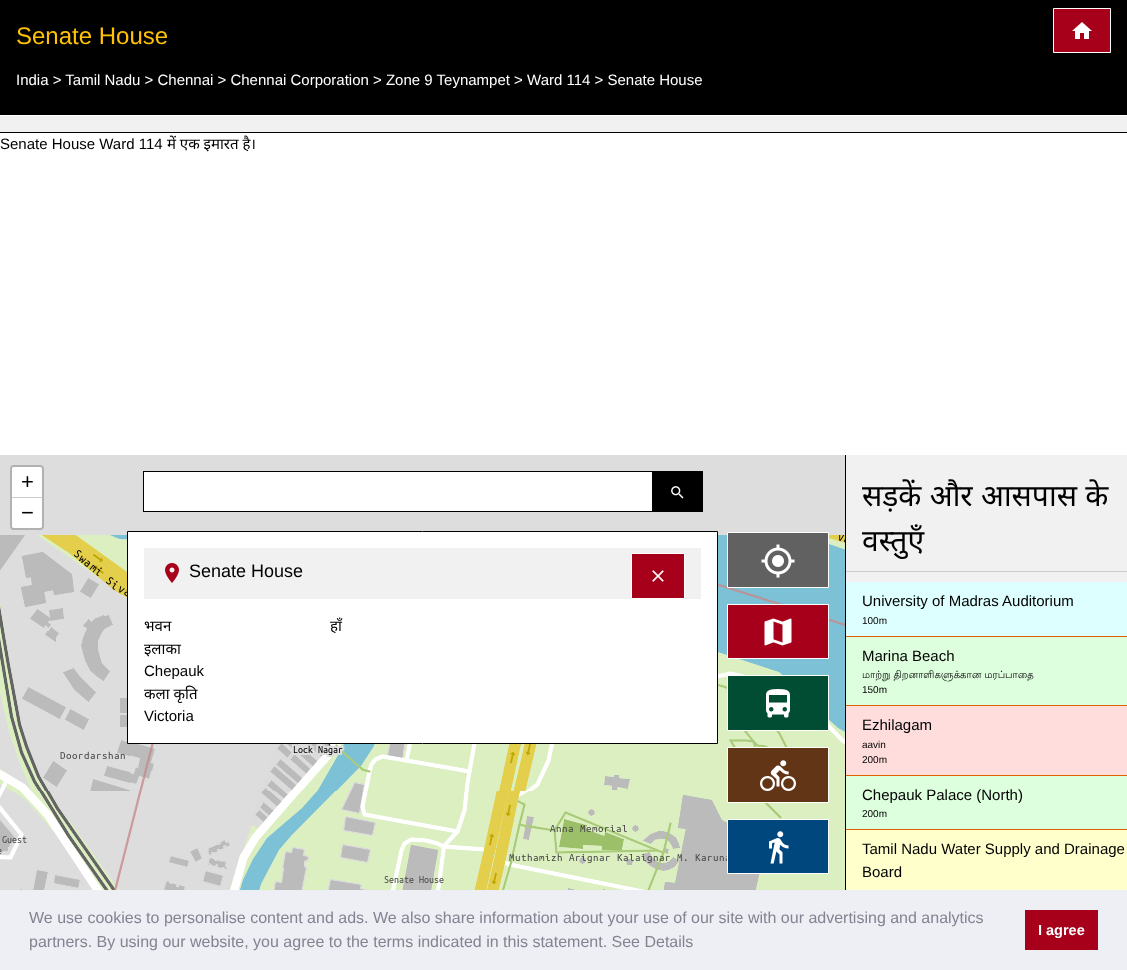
<!DOCTYPE html>
<meta charset="utf-8">
<style>body { margin: 0 } canvas { display: block }</style>
<canvas id="canvas" width="1127" height="970"></canvas>
<script type="module">
  const canvas = document.getElementById("canvas");
  const ctx = canvas.getContext("2d");
  ctx.miterLimit = 4;
  ctx.fontKerning = "normal";
  async function loadImage(src) {
    const img = new Image();
    img.src = src;
    await img.decode();
    return img;
  }

  ctx.fillStyle = "#ffffff";
  ctx.fillRect(0, 0, 1127, 970);
  ctx.fillStyle = "#000000";
  ctx.fillRect(0, 0, 1127, 115);
  ctx.font = "24px Liberation Sans";
  ctx.fillStyle = "#ffc107";
  ctx.fillText("Senate House", 16, 44);
  ctx.fillStyle = "#a6001a";
  ctx.beginPath();
  ctx.rect(1053.5, 8.5, 57, 44);
  ctx.fill();
  ctx.strokeStyle = "#ffffff";
  ctx.stroke();
  ctx.drawImage(await loadImage("img1.png"), 1072, 22, 20, 17);
  ctx.font = "15px Liberation Sans";
  ctx.fillStyle = "#ffffff";
  ctx.fillText("India > Tamil Nadu > Chennai > Chennai Corporation > Zone 9 Teynampet > Ward 114 > Senate House", 16, 85);
  ctx.fillStyle = "#f1f1f1";
  ctx.fillRect(0, 116, 1127, 16);
  ctx.fillStyle = "#000000";
  ctx.fillRect(0, 132, 1127, 1);
  ctx.fillText("Senate House Ward 114", 0, 149);
  ctx.font = "15px Noto Sans";
  ctx.fillText("में एक इमारत है।", 167, 149);
  ctx.fillStyle = "#dddddd";
  ctx.fillRect(0, 455, 845, 80);
  ctx.beginPath();
  ctx.roundRect(11, 466, 32, 63, 3);
  ctx.strokeStyle = "#b1b1b1";
  ctx.lineWidth = 2;
  ctx.stroke();
  ctx.fillStyle = "#ffffff";
  ctx.beginPath();
  ctx.roundRect(12, 467, 30, 31, [2, 2, 0, 0]);
  ctx.fill();
  ctx.fillStyle = "#cccccc";
  ctx.fillRect(12, 497, 30, 1);
  ctx.font = "22px Liberation Sans";
  ctx.fillStyle = "#000000";
  ctx.fillText("+", 21, 489);
  ctx.fillStyle = "#ffffff";
  ctx.beginPath();
  ctx.roundRect(12, 498, 30, 30, [0, 0, 2, 2]);
  ctx.fill();
  ctx.fillStyle = "#000000";
  ctx.fillText("−", 21, 520);
  ctx.drawImage(await loadImage("img2.png"), 0, 535, 130, 256);
  ctx.drawImage(await loadImage("img3.png"), 130, 744, 256, 47);
  ctx.drawImage(await loadImage("img4.png"), 386, 744, 256, 47);
  ctx.drawImage(await loadImage("img5.png"), 642, 535, 203, 256);
  ctx.drawImage(await loadImage("img6.png"), 0, 791, 130, 99);
  ctx.drawImage(await loadImage("img7.png"), 130, 791, 256, 99);
  ctx.drawImage(await loadImage("img8.png"), 386, 791, 256, 99);
  ctx.drawImage(await loadImage("img9.png"), 642, 791, 203, 99);
  ctx.fillStyle = "#ffffff";
  ctx.fillRect(144, 472, 508, 39);
  ctx.fillStyle = "#000000";
  ctx.fillRect(652, 471, 51, 41);
  ctx.save();
  ctx.beginPath();
  ctx.rect(143, 471, 509, 41);
  ctx.clip();
  ctx.strokeStyle = "#000000";
  ctx.lineWidth = 1;
  ctx.strokeRect(143.5, 471.5, 526, 40);
  ctx.restore();
  ctx.drawImage(await loadImage("img10.png"), 671, 486, 13, 13);
  ctx.fillStyle = "#ffffff";
  ctx.beginPath();
  ctx.rect(127.5, 531.5, 590, 212);
  ctx.fill();
  ctx.strokeStyle = "#000000";
  ctx.lineWidth = 1;
  ctx.stroke();
  ctx.fillStyle = "#f1f1f1";
  ctx.fillRect(144, 548, 557, 51);
  ctx.drawImage(await loadImage("img11.png"), 165, 563, 14, 20);
  ctx.font = "18px Liberation Sans";
  ctx.fillStyle = "#000000";
  ctx.fillText("Senate House", 189, 577);
  ctx.fillStyle = "#a6001a";
  ctx.beginPath();
  ctx.rect(631.5, 553.5, 53, 45);
  ctx.fill();
  ctx.strokeStyle = "#ffffff";
  ctx.stroke();
  ctx.drawImage(await loadImage("img12.png"), 652, 570, 12, 12);
  ctx.font = "15px Noto Sans";
  ctx.fillStyle = "#000000";
  ctx.fillText("भवन", 144, 631);
  ctx.fillText("हाँ", 330, 631);
  ctx.fillText("इलाका", 144, 654);
  ctx.font = "15px Liberation Sans";
  ctx.fillText("Chepauk", 144, 676);
  ctx.font = "15px Noto Sans";
  ctx.fillText("कला कृति", 144, 699);
  ctx.font = "15px Liberation Sans";
  ctx.fillText("Victoria", 144, 721);
  ctx.fillStyle = "#616161";
  ctx.beginPath();
  ctx.rect(727.5, 532.5, 101, 55);
  ctx.fill();
  ctx.stroke();
  ctx.drawImage(await loadImage("img13.png"), 761, 544, 34, 34);
  ctx.fillStyle = "#a6001a";
  ctx.beginPath();
  ctx.rect(727.5, 604.5, 101, 54);
  ctx.fill();
  ctx.stroke();
  ctx.drawImage(await loadImage("img14.png"), 764, 618, 28, 28);
  ctx.fillStyle = "#004d33";
  ctx.beginPath();
  ctx.rect(727.5, 675.5, 101, 55);
  ctx.fill();
  ctx.stroke();
  ctx.drawImage(await loadImage("img15.png"), 766, 689, 24, 29);
  ctx.fillStyle = "#633517";
  ctx.beginPath();
  ctx.rect(727.5, 747.5, 101, 55);
  ctx.fill();
  ctx.stroke();
  ctx.drawImage(await loadImage("img16.png"), 760, 760, 36, 31);
  ctx.fillStyle = "#00477e";
  ctx.beginPath();
  ctx.rect(727.5, 819.5, 101, 54);
  ctx.fill();
  ctx.stroke();
  ctx.drawImage(await loadImage("img17.png"), 769, 831, 20, 33);
  ctx.fillStyle = "#f1f1f1";
  ctx.fillRect(846, 455, 281, 127);
  ctx.fillStyle = "#000000";
  ctx.fillRect(845, 455, 1, 435);
  ctx.fillStyle = "#cccccc";
  ctx.fillRect(846, 571, 281, 1);
  ctx.wordSpacing = "0.5px";
  ctx.font = "30px Noto Sans";
  ctx.fillStyle = "#000000";
  ctx.fillText("सड़कें और आसपास के", 862, 506);
  ctx.wordSpacing = "0px";
  ctx.fillText("वस्तुएँ", 862, 551);
  ctx.fillStyle = "#ddffff";
  ctx.fillRect(846, 582, 281, 54);
  ctx.fillStyle = "#e06000";
  ctx.fillRect(846, 636, 281, 1);
  ctx.font = "15px Liberation Sans";
  ctx.fillStyle = "#000000";
  ctx.fillText("University of Madras Auditorium", 862, 606);
  ctx.font = "10px Liberation Sans";
  ctx.fillText("100m", 862, 624);
  ctx.fillStyle = "#ddffdd";
  ctx.fillRect(846, 637, 281, 68);
  ctx.fillStyle = "#e06000";
  ctx.fillRect(846, 705, 281, 1);
  ctx.font = "15px Liberation Sans";
  ctx.fillStyle = "#000000";
  ctx.fillText("Marina Beach", 862, 661);
  ctx.font = "10px Lohit Tamil";
  ctx.fillText("மாற்று திறனாளிகளுக்கான மரப்பாதை", 862, 678);
  ctx.font = "10px Liberation Sans";
  ctx.fillText("150m", 862, 693);
  ctx.fillStyle = "#ffdddd";
  ctx.fillRect(846, 706, 281, 69);
  ctx.fillStyle = "#e06000";
  ctx.fillRect(846, 775, 281, 1);
  ctx.font = "15px Liberation Sans";
  ctx.fillStyle = "#000000";
  ctx.fillText("Ezhilagam", 862, 730);
  ctx.font = "10px Liberation Sans";
  ctx.fillText("aavin", 862, 748);
  ctx.fillText("200m", 862, 763);
  ctx.fillStyle = "#ddffdd";
  ctx.fillRect(846, 776, 281, 53);
  ctx.fillStyle = "#e06000";
  ctx.fillRect(846, 829, 281, 1);
  ctx.font = "15px Liberation Sans";
  ctx.fillStyle = "#000000";
  ctx.fillText("Chepauk Palace (North)", 862, 800);
  ctx.font = "10px Liberation Sans";
  ctx.fillText("200m", 862, 817);
  ctx.fillStyle = "#ffffcc";
  ctx.fillRect(846, 830, 281, 60);
  ctx.font = "15px Liberation Sans";
  ctx.fillStyle = "#000000";
  ctx.fillText("Tamil Nadu Water Supply and Drainage", 862, 854);
  ctx.fillText("Board", 862, 877);
  ctx.fillStyle = "#edeff5";
  ctx.fillRect(0, 890, 1127, 80);
  ctx.font = "16px Liberation Sans";
  ctx.fillStyle = "#838391";
  ctx.fillText("We use cookies to personalise content and ads. We also share information about your use of our site with our advertising and analytics", 29, 923);
  ctx.fillText("partners. By using our website, you agree to the terms indicated in this statement. See Details", 29, 947);
  ctx.fillStyle = "#a6001a";
  ctx.fillRect(1025, 910, 73, 40);
  ctx.font = "bold 14.5px Liberation Sans";
  ctx.fillStyle = "#ffffff";
  ctx.fillText("I agree", 1038, 935);
</script>
